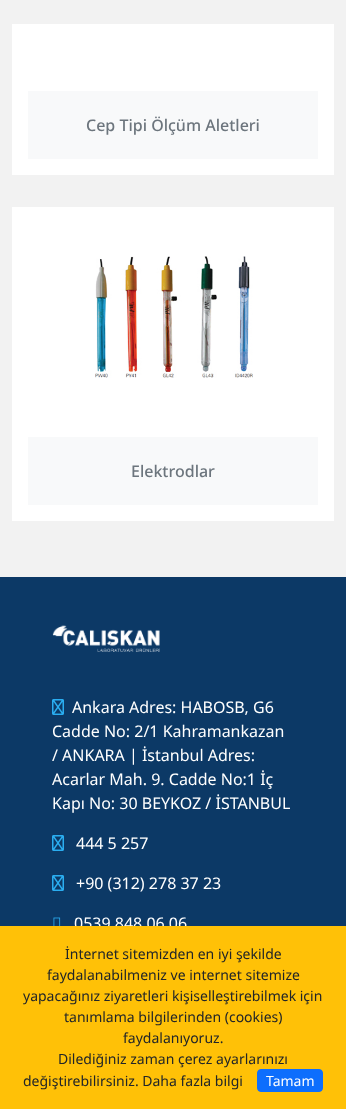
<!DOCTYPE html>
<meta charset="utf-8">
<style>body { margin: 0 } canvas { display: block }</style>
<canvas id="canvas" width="346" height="1109"></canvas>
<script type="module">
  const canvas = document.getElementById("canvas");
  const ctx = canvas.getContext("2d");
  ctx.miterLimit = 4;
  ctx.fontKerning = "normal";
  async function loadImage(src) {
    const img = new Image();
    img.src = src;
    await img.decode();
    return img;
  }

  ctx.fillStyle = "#f2f2f2";
  ctx.fillRect(0, 0, 346, 1109);
  ctx.fillStyle = "#ffffff";
  ctx.fillRect(12, 24, 322, 151);
  ctx.fillStyle = "#f8f9fa";
  ctx.fillRect(28, 91, 290, 68);
  ctx.font = "500 16px Noto Sans";
  ctx.fillStyle = "#6c757d";
  ctx.fillText("Cep Tipi Ölçüm Aletleri", 86, 131);
  ctx.fillStyle = "#ffffff";
  ctx.fillRect(12, 207, 322, 314);
  ctx.drawImage(await loadImage("img1.png"), 95, 256, 158, 122);
  ctx.fillStyle = "#f8f9fa";
  ctx.fillRect(28, 437, 290, 68);
  ctx.fillStyle = "#6c757d";
  ctx.fillText("Elektrodlar", 131, 477);
  ctx.fillStyle = "#0c3966";
  ctx.fillRect(0, 577, 346, 349);
  ctx.drawImage(await loadImage("img2.png"), 52, 625, 108, 27);
  ctx.drawImage(await loadImage("img3.png"), 52, 699, 12, 16);
  ctx.font = "16px Noto Sans";
  ctx.fillStyle = "#ffffff";
  ctx.fillText("Ankara Adres: HABOSB, G6", 72, 713);
  ctx.fillText("Cadde No: 2/1 Kahramankazan", 52, 737);
  ctx.fillText("/ ANKARA | İstanbul Adres:", 52, 761);
  ctx.fillText("Acarlar Mah. 9. Cadde No:1 İç", 52, 785);
  ctx.fillText("Kapı No: 30 BEYKOZ / İSTANBUL", 52, 809);
  ctx.drawImage(await loadImage("img3.png"), 52, 835, 12, 16);
  ctx.fillText("444 5 257", 76, 849);
  ctx.drawImage(await loadImage("img3.png"), 52, 875, 12, 16);
  ctx.fillText("+90 (312) 278 37 23", 76, 889);
  ctx.drawImage(await loadImage("img4.png"), 53, 917, 8, 9);
  ctx.fillText("0539 848 06 06", 74, 929);
  ctx.fillStyle = "#ffc107";
  ctx.fillRect(0, 926, 346, 183);
  ctx.font = "14px Noto Sans";
  ctx.fillStyle = "#212529";
  ctx.fillText("İnternet sitemizden en iyi şekilde", 65, 959);
  ctx.fillText("faydalanabilmeniz ve internet sitemize", 47, 980);
  ctx.fillText("yapacağınız ziyaretleri kişiselleştirebilmek için", 23, 1001);
  ctx.fillText("tanımlama bilgilerinden (cookies)", 64, 1022);
  ctx.fillText("faydalanıyoruz.", 123, 1043);
  ctx.fillText("Dilediğiniz zaman çerez ayarlarınızı", 58, 1064);
  ctx.fillText("değiştirebilirsiniz. Daha fazla bilgi", 23, 1086);
  ctx.fillStyle = "#0d6efd";
  ctx.beginPath();
  ctx.roundRect(257.5, 1069.5, 65, 22, 3.5);
  ctx.fill();
  ctx.strokeStyle = "#0d6efd";
  ctx.stroke();
  ctx.fillStyle = "#ffffff";
  ctx.fillText("Tamam", 266, 1086);
</script>
